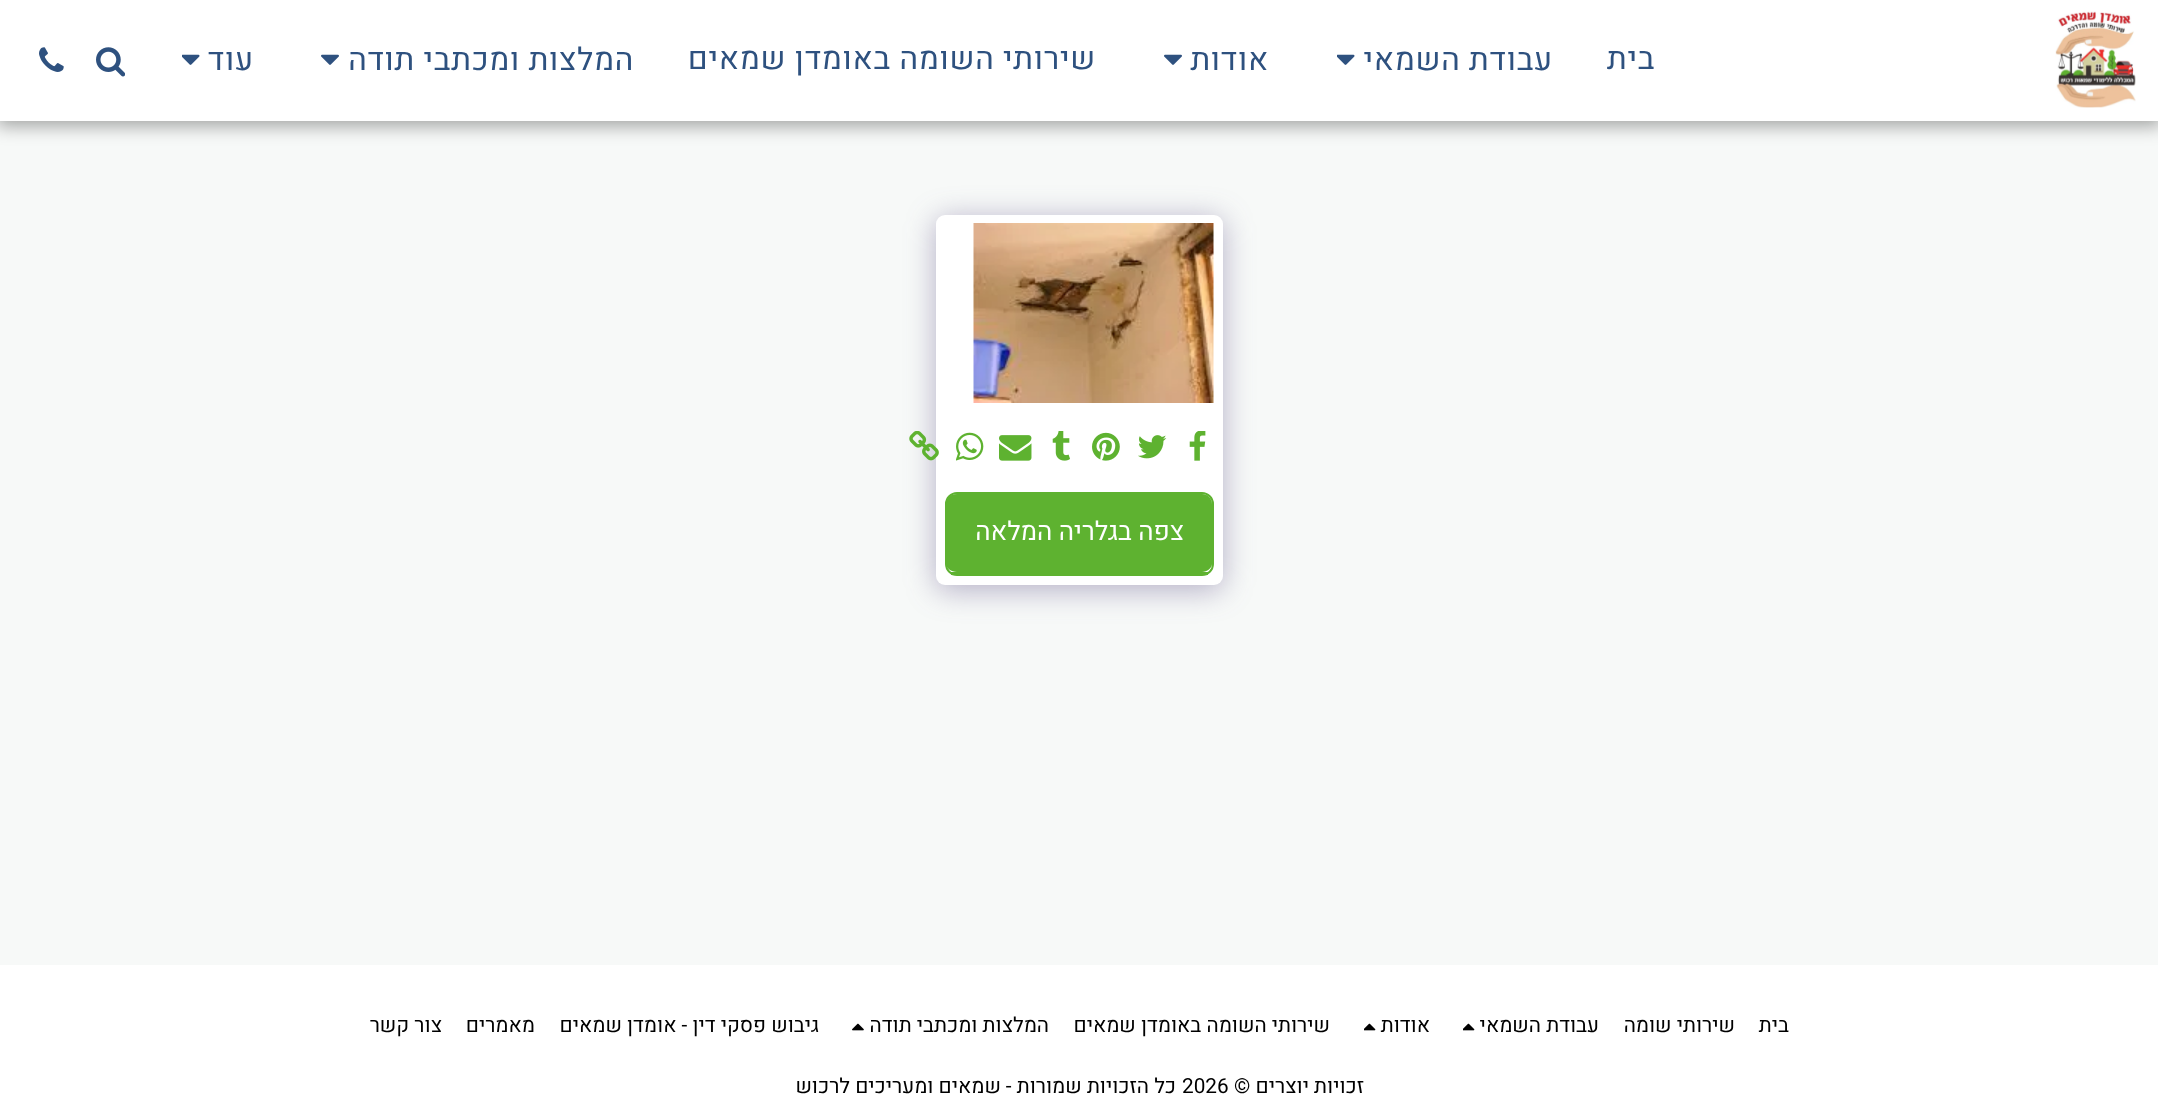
<!DOCTYPE html>
<meta charset="utf-8">
<style>body { margin: 0 } canvas { display: block }</style>
<canvas id="canvas" width="2158" height="1117"></canvas>
<script type="module">
  const canvas = document.getElementById("canvas");
  const ctx = canvas.getContext("2d");
  ctx.miterLimit = 4;
  ctx.fontKerning = "normal";
  async function loadImage(src) {
    const img = new Image();
    img.src = src;
    await img.decode();
    return img;
  }

  ctx.fillStyle = "#f7f9f8";
  ctx.fillRect(0, 0, 2158, 1117);
  ctx.fillStyle = "rgba(0, 0, 0, 0.35)";
  ctx.filter = "blur(9px)";
  ctx.beginPath();
  ctx.rect(-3, 0, 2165, 126);
  ctx.fill();
  ctx.filter = "none";
  ctx.fillStyle = "#ffffff";
  ctx.fillRect(0, 0, 2158, 121);
  ctx.drawImage(await loadImage("img1.png"), 2055, 11, 81, 97);
  ctx.letterSpacing = "0.75px";
  ctx.direction = "rtl";
  ctx.font = "31.5px Heebo";
  ctx.fillStyle = "#2e517f";
  ctx.fillText("בית", 1655, 69);
  ctx.fillText("עבודת השמאי", 1553, 70);
  ctx.drawImage(await loadImage("img2.png"), 1337, 54, 18, 11);
  ctx.fillText("אודות", 1269, 70);
  ctx.drawImage(await loadImage("img3.png"), 1164, 54, 18, 11);
  ctx.fillText("שירותי השומה באומדן שמאים", 1096, 69);
  ctx.fillText("המלצות ומכתבי תודה", 634, 70);
  ctx.drawImage(await loadImage("img3.png"), 321, 54, 18, 11);
  ctx.fillText("עוד", 254, 70);
  ctx.drawImage(await loadImage("img2.png"), 182, 54, 18, 11);
  ctx.drawImage(await loadImage("img4.png"), 96, 47, 29, 30);
  ctx.drawImage(await loadImage("img5.png"), 39, 47, 25, 25);
  ctx.fillStyle = "rgba(77, 63, 122, 0.4)";
  ctx.filter = "blur(15px)";
  ctx.beginPath();
  ctx.roundRect(936, 219, 287, 371, 9);
  ctx.fill();
  ctx.filter = "none";
  ctx.fillStyle = "#ffffff";
  ctx.beginPath();
  ctx.roundRect(936, 215, 287, 370, 9);
  ctx.fill();
  ctx.drawImage(await loadImage("img6.png"), 973, 223, 241, 180);
  ctx.drawImage(await loadImage("img7.png"), 1189, 431, 17, 30);
  ctx.drawImage(await loadImage("img8.png"), 1138, 435, 29, 24);
  ctx.drawImage(await loadImage("img9.png"), 1092, 432, 28, 29);
  ctx.drawImage(await loadImage("img10.png"), 1052, 431, 18, 30);
  ctx.drawImage(await loadImage("img11.png"), 999, 435, 33, 26);
  ctx.drawImage(await loadImage("img12.png"), 956, 432, 28, 29);
  ctx.drawImage(await loadImage("img13.png"), 909, 431, 30, 30);
  ctx.fillStyle = "#5eb230";
  ctx.beginPath();
  ctx.moveTo(957, 494);
  ctx.lineTo(1202, 494);
  ctx.bezierCurveTo(1207, 494, 1212, 498, 1212, 504);
  ctx.lineTo(1212, 564);
  ctx.bezierCurveTo(1212, 568, 1207, 572, 1202, 572);
  ctx.lineTo(957, 572);
  ctx.bezierCurveTo(951, 572, 946, 568, 946, 564);
  ctx.lineTo(946, 504);
  ctx.bezierCurveTo(946, 498, 951, 494, 957, 494);
  ctx.closePath();
  ctx.fill();
  ctx.beginPath();
  ctx.roundRect(946, 493, 267, 82, 11);
  ctx.strokeStyle = "#5eb230";
  ctx.lineWidth = 2;
  ctx.stroke();
  ctx.fillRect(951, 572, 257, 3);
  ctx.letterSpacing = "0px";
  ctx.font = "26px Heebo";
  ctx.fillStyle = "#ffffff";
  ctx.fillText("צפה בגלריה המלאה", 1184, 540);
  ctx.fillRect(0, 965, 2158, 152);
  ctx.font = "20.75px Heebo";
  ctx.fillStyle = "#000000";
  ctx.fillText("בית", 1789, 1032);
  ctx.fillText("שירותי שומה", 1735, 1032);
  ctx.fillText("עבודת השמאי", 1599, 1032);
  ctx.drawImage(await loadImage("img14.png"), 1463, 1023, 12, 8);
  ctx.fillText("אודות", 1430, 1032);
  ctx.drawImage(await loadImage("img14.png"), 1364, 1023, 12, 8);
  ctx.fillText("שירותי השומה באומדן שמאים", 1330, 1032);
  ctx.fillText("המלצות ומכתבי תודה", 1049, 1032);
  ctx.drawImage(await loadImage("img15.png"), 852, 1023, 12, 8);
  ctx.fillText("גיבוש פסקי דין - אומדן שמאים", 819, 1032);
  ctx.fillText("מאמרים", 535, 1032);
  ctx.fillText("צור קשר", 442, 1032);
  ctx.fillText("זכויות יוצרים ©", 1364, 1093);
  ctx.direction = "ltr";
  ctx.fillText("2026", 1182, 1093);
  ctx.direction = "rtl";
  ctx.fillText("כל הזכויות שמורות -", 1176, 1093);
  ctx.fillText("שמאים ומעריכים לרכוש", 1001, 1093);
</script>
